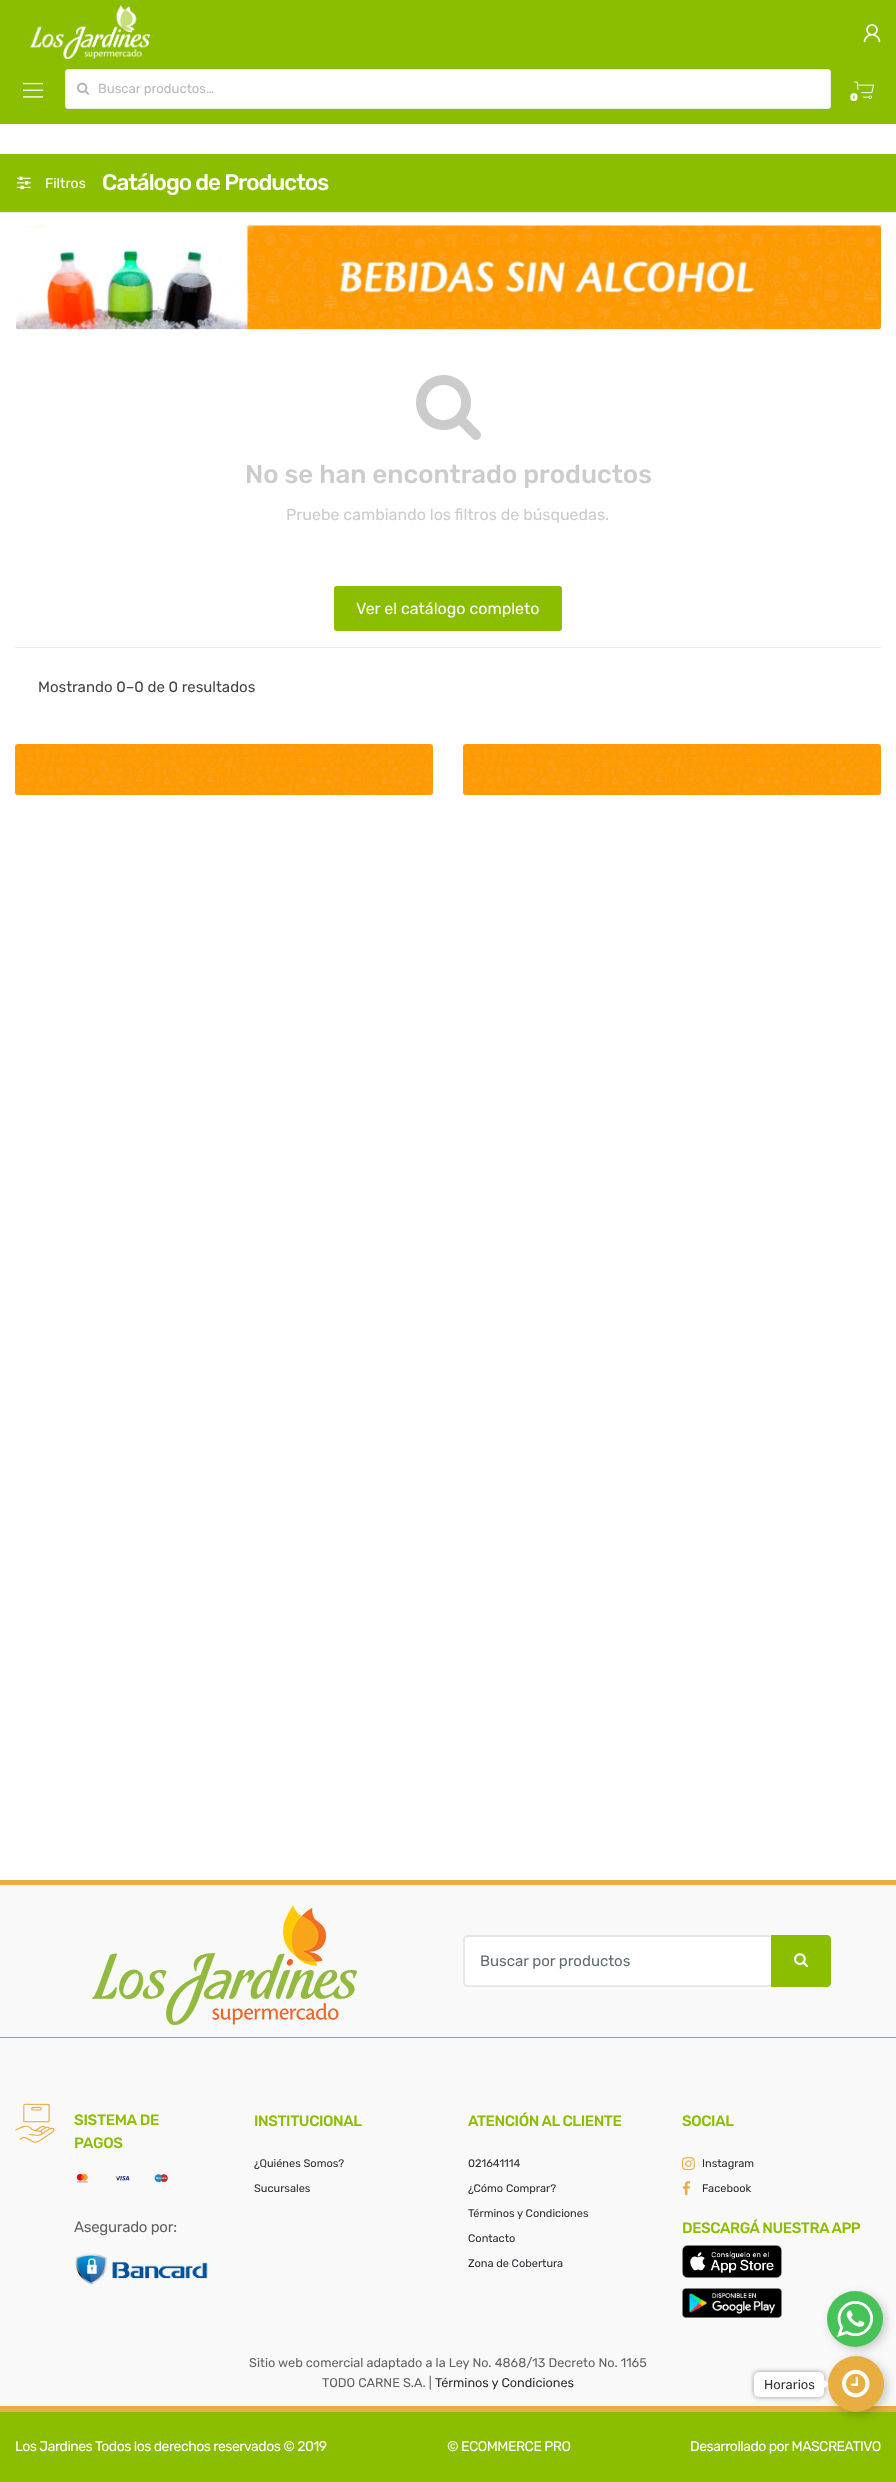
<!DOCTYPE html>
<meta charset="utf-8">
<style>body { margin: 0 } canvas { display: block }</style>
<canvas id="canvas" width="896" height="2482"></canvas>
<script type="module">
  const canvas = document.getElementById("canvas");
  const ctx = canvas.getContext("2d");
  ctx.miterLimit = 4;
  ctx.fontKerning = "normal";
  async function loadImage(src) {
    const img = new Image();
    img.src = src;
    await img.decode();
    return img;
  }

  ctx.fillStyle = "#ffffff";
  ctx.fillRect(0, 0, 896, 2482);
  ctx.fillStyle = "#8bbd00";
  ctx.fillRect(0, 0, 896, 124);
  ctx.drawImage(await loadImage("img1.png"), 30, 5, 120, 54);
  ctx.drawImage(await loadImage("img2.png"), 863, 24, 18, 19);
  ctx.drawImage(await loadImage("img3.png"), 23, 82, 20, 16);
  ctx.fillStyle = "#ffffff";
  ctx.beginPath();
  ctx.roundRect(65.5, 69.5, 765, 39, 2.5);
  ctx.fill();
  ctx.strokeStyle = "#ebebeb";
  ctx.stroke();
  ctx.drawImage(await loadImage("img4.png"), 77, 82, 12, 13);
  ctx.font = "13.1px Rubik";
  ctx.fillStyle = "#bababa";
  ctx.fillText("Buscar productos…", 98, 93);
  ctx.drawImage(await loadImage("img5.png"), 854, 81, 20, 18);
  ctx.fillStyle = "#8bbd00";
  ctx.beginPath();
  ctx.arc(854.5, 97.5, 8.5, 0, Math.PI * 2);
  ctx.fill();
  ctx.font = "900 11px Rubik";
  ctx.fillStyle = "#ffffff";
  ctx.fillText("0", 850, 101);
  ctx.fillStyle = "#8bbd00";
  ctx.fillRect(0, 154, 896, 58);
  ctx.fillStyle = "#ebebeb";
  ctx.fillRect(0, 212, 896, 1);
  ctx.drawImage(await loadImage("img6.png"), 17, 176, 14, 14);
  ctx.font = "14px Rubik";
  ctx.fillStyle = "#ffffff";
  ctx.fillText("Filtros", 45, 188);
  ctx.letterSpacing = "-1px";
  ctx.font = "500 22.5px Rubik";
  ctx.fillText("Catálogo de Productos", 102, 190);
  ctx.drawImage(await loadImage("img7.png"), 16, 225, 865, 105);
  ctx.drawImage(await loadImage("img8.png"), 416, 375, 65, 65);
  ctx.letterSpacing = "0px";
  ctx.font = "500 25.9px Rubik";
  ctx.fillStyle = "#cccccc";
  ctx.fillText("No se han encontrado productos", 245, 483);
  ctx.font = "16px Rubik";
  ctx.fillText("Pruebe cambiando los filtros de búsquedas.", 286, 520);
  ctx.fillStyle = "#8bbd00";
  ctx.beginPath();
  ctx.roundRect(334, 586, 228, 45, 3);
  ctx.fill();
  ctx.fillStyle = "#ffffff";
  ctx.fillText("Ver el catálogo completo", 356, 614);
  ctx.fillStyle = "#ebebeb";
  ctx.fillRect(15, 647, 866, 1);
  ctx.font = "15px Rubik";
  ctx.fillStyle = "#43454b";
  ctx.fillText("Mostrando 0–0 de 0 resultados", 38, 692);
  ctx.drawImage(await loadImage("img9.png"), 15, 744, 418, 51);
  ctx.drawImage(await loadImage("img9.png"), 463, 744, 418, 51);
  ctx.fillStyle = "#f9f9f9";
  ctx.fillRect(0, 1885, 896, 521);
  ctx.fillStyle = "#e8ae41";
  ctx.fillRect(0, 1880, 896, 5);
  ctx.fillStyle = "#8bbd00";
  ctx.fillRect(0, 2037, 896, 1);
  ctx.drawImage(await loadImage("img10.png"), 92, 1905, 265, 120);
  ctx.fillStyle = "#ffffff";
  ctx.beginPath();
  ctx.roundRect(465, 1937, 307, 48, [3, 0, 0, 3]);
  ctx.fill();
  ctx.fillStyle = "#e7e7e7";
  ctx.beginPath();
  ctx.moveTo(468, 1935);
  ctx.lineTo(772, 1935);
  ctx.lineTo(772, 1987);
  ctx.lineTo(468, 1987);
  ctx.bezierCurveTo(465, 1987, 463, 1985, 463, 1982);
  ctx.lineTo(463, 1940);
  ctx.bezierCurveTo(463, 1937, 465, 1935, 468, 1935);
  ctx.closePath();
  ctx.moveTo(468, 1937);
  ctx.lineTo(772, 1937);
  ctx.lineTo(772, 1985);
  ctx.lineTo(468, 1985);
  ctx.bezierCurveTo(466, 1985, 465, 1984, 465, 1982);
  ctx.lineTo(465, 1940);
  ctx.bezierCurveTo(465, 1938, 466, 1937, 468, 1937);
  ctx.closePath();
  ctx.fill("evenodd");
  ctx.fillStyle = "#636c72";
  ctx.fillText("Buscar por productos", 480, 1966);
  ctx.fillStyle = "#8bbd00";
  ctx.beginPath();
  ctx.roundRect(771.5, 1935.5, 59, 51, [0, 3.5, 3.5, 0]);
  ctx.fill();
  ctx.strokeStyle = "#8bbd00";
  ctx.stroke();
  ctx.drawImage(await loadImage("img11.png"), 794, 1953, 14, 15);
  ctx.drawImage(await loadImage("img12.png"), 15, 2103, 40, 40);
  ctx.letterSpacing = "-0.25px";
  ctx.font = "500 15px Rubik";
  ctx.fillText("SISTEMA DE", 74, 2125);
  ctx.fillText("PAGOS", 74, 2148);
  ctx.drawImage(await loadImage("img13.png"), 76, 2173, 12, 10);
  ctx.drawImage(await loadImage("img14.png"), 115, 2176, 15, 5);
  ctx.drawImage(await loadImage("img15.png"), 154, 2174, 14, 9);
  ctx.font = "15px Rubik";
  ctx.fillStyle = "#626262";
  ctx.fillText("Asegurado por:", 74, 2232);
  ctx.drawImage(await loadImage("img16.png"), 75, 2253, 133, 32);
  ctx.letterSpacing = "-0.4px";
  ctx.font = "500 15px Rubik";
  ctx.fillStyle = "#8bbd00";
  ctx.fillText("INSTITUCIONAL", 254, 2126);
  ctx.letterSpacing = "0px";
  ctx.font = "11px Rubik";
  ctx.fillStyle = "#2c2d33";
  ctx.fillText("¿Quiénes Somos?", 254, 2167);
  ctx.fillText("Sucursales", 254, 2192);
  ctx.letterSpacing = "-0.4px";
  ctx.font = "500 15px Rubik";
  ctx.fillStyle = "#8bbd00";
  ctx.fillText("ATENCIÓN AL CLIENTE", 468, 2126);
  ctx.letterSpacing = "0px";
  ctx.font = "11px Rubik";
  ctx.fillStyle = "#2c2d33";
  ctx.fillText("021641114", 468, 2167);
  ctx.fillText("¿Cómo Comprar?", 468, 2192);
  ctx.fillText("Términos y Condiciones", 468, 2217);
  ctx.fillText("Contacto", 468, 2242);
  ctx.fillText("Zona de Cobertura", 468, 2267);
  ctx.letterSpacing = "-0.4px";
  ctx.font = "500 15px Rubik";
  ctx.fillStyle = "#8bbd00";
  ctx.fillText("SOCIAL", 682, 2126);
  ctx.drawImage(await loadImage("img17.png"), 682, 2157, 13, 14);
  ctx.letterSpacing = "0px";
  ctx.font = "11px Rubik";
  ctx.fillStyle = "#2c2d33";
  ctx.fillText("Instagram", 702, 2167);
  ctx.drawImage(await loadImage("img18.png"), 682, 2181, 9, 15);
  ctx.fillText("Facebook", 702, 2192);
  ctx.letterSpacing = "-0.4px";
  ctx.font = "500 15px Rubik";
  ctx.fillStyle = "#8bbd00";
  ctx.fillText("DESCARGÁ NUESTRA APP", 682, 2233);
  ctx.drawImage(await loadImage("img19.png"), 682, 2245, 100, 33);
  ctx.drawImage(await loadImage("img20.png"), 682, 2288, 100, 30);
  ctx.letterSpacing = "0px";
  ctx.font = "12.7px Rubik";
  ctx.fillStyle = "#626262";
  ctx.fillText("Sitio web comercial adaptado a la Ley No. 4868/13 Decreto No. 1165", 249, 2367);
  ctx.fillText("TODO CARNE S.A. |", 322, 2387);
  ctx.fillStyle = "#2c2d33";
  ctx.fillText("Términos y Condiciones", 435, 2387);
  ctx.fillStyle = "#8bbd00";
  ctx.fillRect(0, 2412, 896, 70);
  ctx.fillStyle = "#e8ae41";
  ctx.fillRect(0, 2406, 896, 6);
  ctx.letterSpacing = "-0.5px";
  ctx.font = "14px Rubik";
  ctx.fillStyle = "#ffffff";
  ctx.fillText("Los Jardines", 15, 2451);
  ctx.fillText("Todos los derechos reservados © 2019", 95, 2451);
  ctx.fillText("© ECOMMERCE PRO", 447, 2451);
  ctx.fillText("Desarrollado por MASCREATIVO", 690, 2451);
  ctx.fillStyle = "rgba(0, 0, 0, 0.2)";
  ctx.filter = "blur(5px)";
  ctx.beginPath();
  ctx.roundRect(830, 2294, 56, 56, 28);
  ctx.fill();
  ctx.filter = "none";
  ctx.fillStyle = "#47c258";
  ctx.beginPath();
  ctx.arc(855, 2319, 28, 0, Math.PI * 2);
  ctx.fill();
  ctx.drawImage(await loadImage("img21.png"), 837, 2301, 36, 36);
  ctx.fillStyle = "rgba(0, 0, 0, 0.2)";
  ctx.filter = "blur(5px)";
  ctx.beginPath();
  ctx.roundRect(831, 2359, 56, 56, 28);
  ctx.fill();
  ctx.filter = "none";
  ctx.fillStyle = "#e8ae41";
  ctx.beginPath();
  ctx.arc(856, 2384, 28, 0, Math.PI * 2);
  ctx.fill();
  ctx.fillStyle = "rgba(0, 0, 0, 0.4)";
  ctx.filter = "blur(2.5px)";
  ctx.beginPath();
  ctx.roundRect(754, 2372, 70, 25, 5);
  ctx.fill();
  ctx.filter = "none";
  ctx.fillStyle = "#ffffff";
  ctx.beginPath();
  ctx.roundRect(754, 2372, 70, 25, 5);
  ctx.fill();
  ctx.letterSpacing = "0px";
  ctx.font = "13px Rubik";
  ctx.fillStyle = "#333333";
  ctx.fillText("Horarios", 764, 2389);
  ctx.fillStyle = "#ffffff";
  ctx.beginPath();
  ctx.moveTo(823, 2389);
  ctx.lineTo(823, 2379);
  ctx.lineTo(829, 2384);
  ctx.closePath();
  ctx.fill();
  ctx.drawImage(await loadImage("img22.png"), 842, 2369, 28, 29);
</script>
